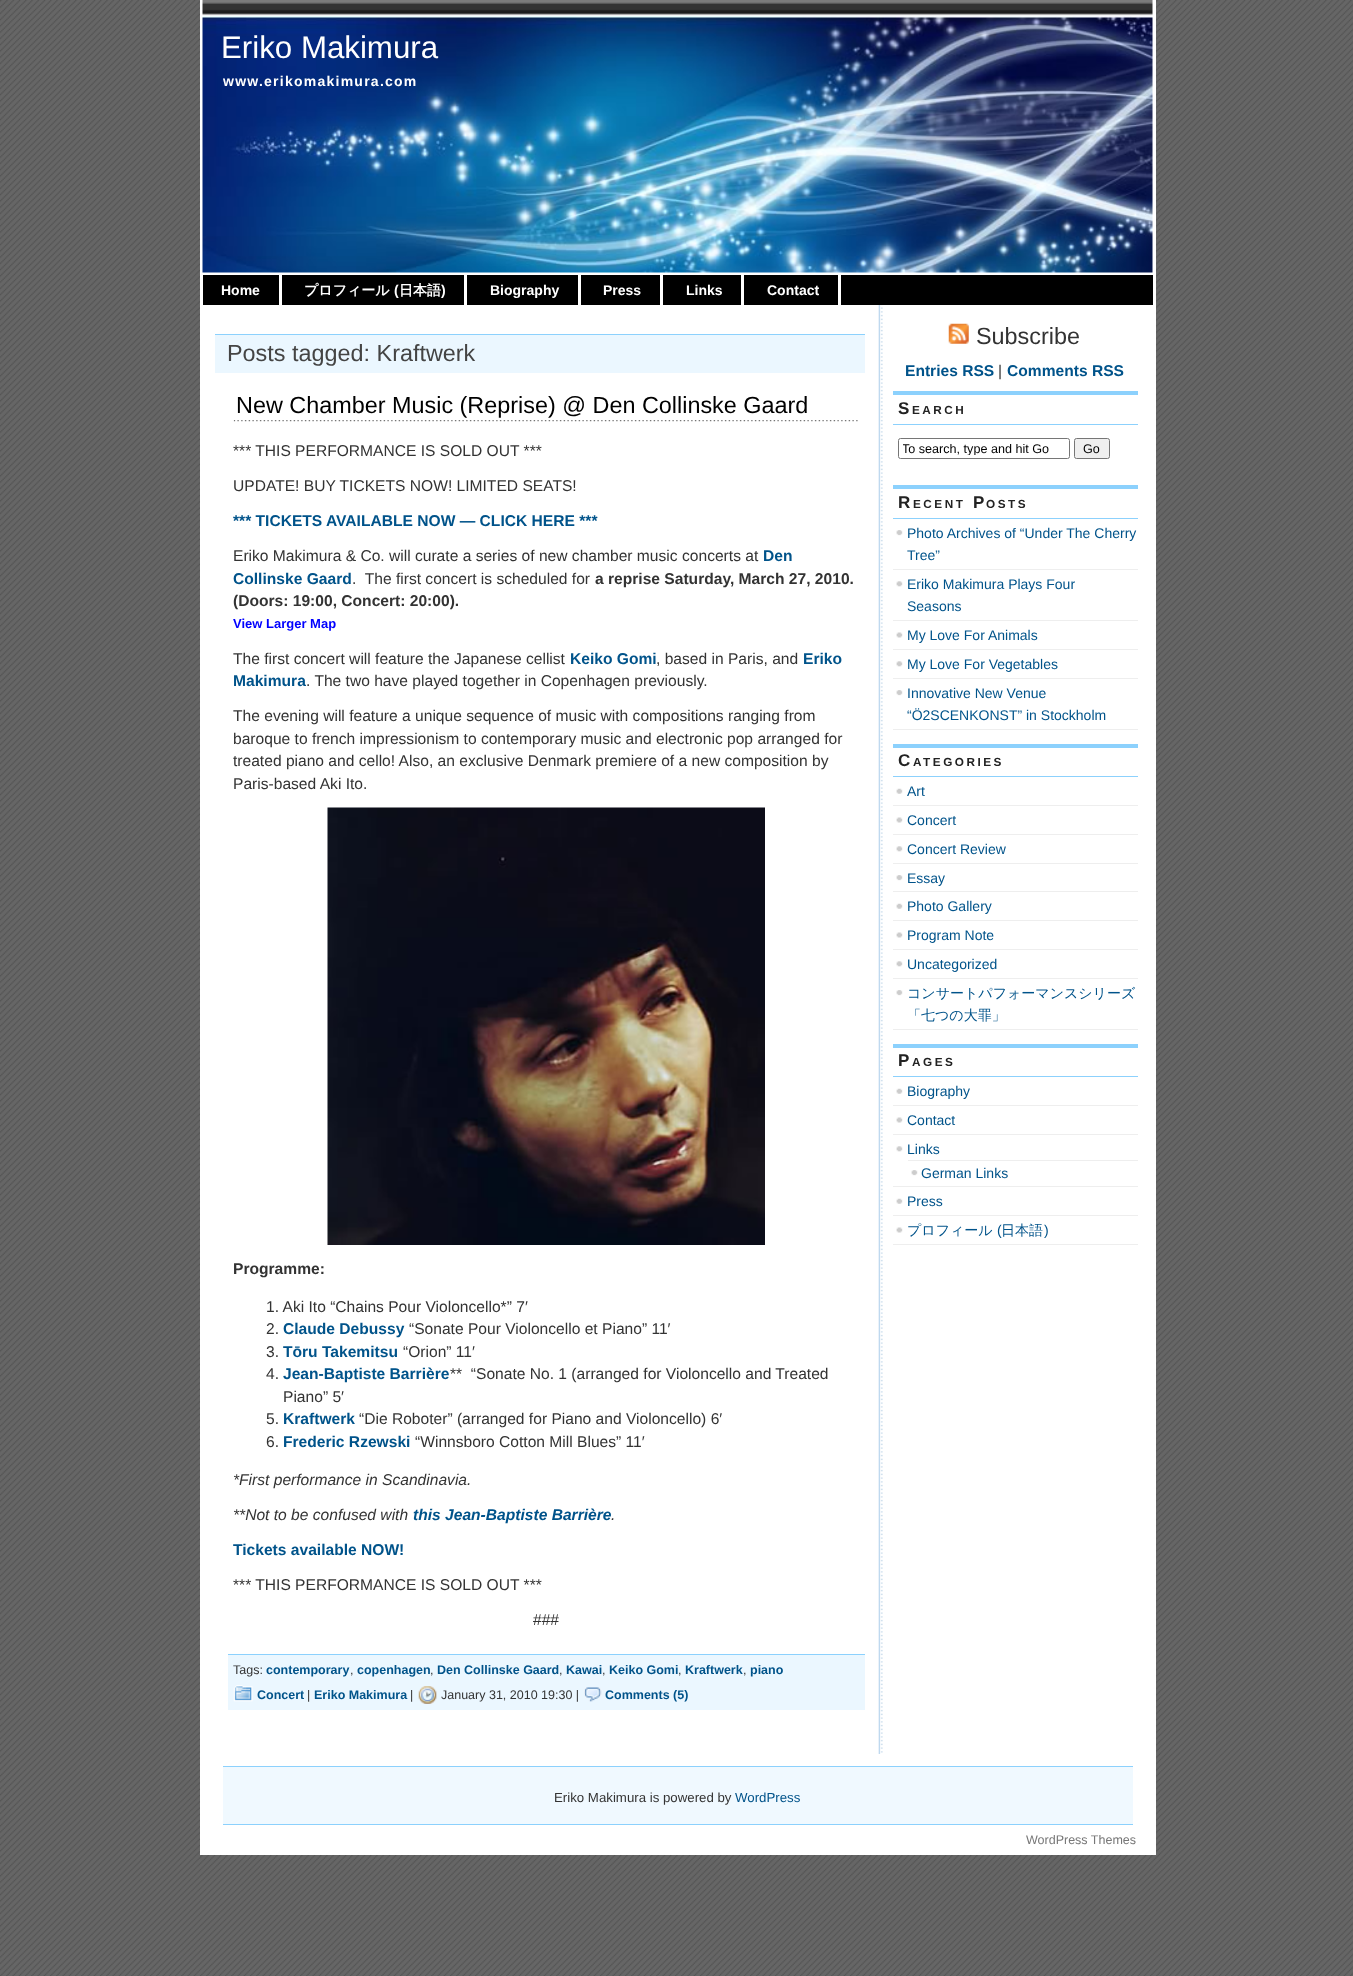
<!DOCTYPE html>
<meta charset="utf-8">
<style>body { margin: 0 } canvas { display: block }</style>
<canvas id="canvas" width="1353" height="1976"></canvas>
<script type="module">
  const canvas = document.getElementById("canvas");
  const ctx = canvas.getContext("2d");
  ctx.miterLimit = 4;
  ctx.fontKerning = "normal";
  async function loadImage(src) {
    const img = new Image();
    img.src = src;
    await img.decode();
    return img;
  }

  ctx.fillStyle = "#ffffff";
  ctx.fillRect(0, 0, 1353, 1976);
  ctx.drawImage(await loadImage("img1.png"), 0, 0, 1353, 1976);
  ctx.fillRect(200, 0, 956, 1855);
  ctx.drawImage(await loadImage("img2.png"), 878, 305, 5, 1449);
  ctx.drawImage(await loadImage("img3.png"), 202, 0, 951, 17);
  ctx.drawImage(await loadImage("img4.png"), 202, 16, 951, 257);
  ctx.font = "31.25px Liberation Sans";
  ctx.fillText("Eriko Makimura", 221, 58);
  ctx.letterSpacing = "1.25px";
  ctx.font = "bold 14px Liberation Sans";
  ctx.fillText("www.erikomakimura.com", 223, 86);
  ctx.fillStyle = "#000000";
  ctx.fillRect(203, 275, 950, 30);
  ctx.letterSpacing = "0px";
  ctx.fillStyle = "#ffffff";
  ctx.fillText("Home", 221, 295);
  ctx.fillRect(279, 275, 3, 30);
  ctx.font = "bold 14px WenQuanYi Zen Hei";
  ctx.fillText("プロフィール", 304, 295);
  ctx.font = "bold 14px Liberation Sans";
  ctx.fillText("(", 394, 295);
  ctx.font = "bold 14px WenQuanYi Zen Hei";
  ctx.fillText("日本語", 399, 295);
  ctx.font = "bold 14px Liberation Sans";
  ctx.fillText(")", 441, 295);
  ctx.fillRect(464, 275, 3, 30);
  ctx.fillText("Biography", 490, 295);
  ctx.fillRect(578, 275, 3, 30);
  ctx.fillText("Press", 603, 295);
  ctx.fillRect(660, 275, 3, 30);
  ctx.fillText("Links", 686, 295);
  ctx.fillRect(741, 275, 3, 30);
  ctx.fillText("Contact", 767, 295);
  ctx.fillRect(838, 275, 3, 30);
  ctx.fillStyle = "#ebf7ff";
  ctx.fillRect(215, 335, 650, 38);
  ctx.fillStyle = "#8cd1fd";
  ctx.fillRect(215, 334, 650, 1);
  ctx.font = "23.4px Liberation Sans";
  ctx.fillStyle = "#444444";
  ctx.fillText("Posts tagged: Kraftwerk", 227, 361);
  ctx.drawImage(await loadImage("img5.png"), 233, 420, 625, 2);
  ctx.fillStyle = "#000000";
  ctx.fillText("New Chamber Music (Reprise) @ Den Collinske Gaard", 236, 413);
  ctx.font = "15.6px Liberation Sans";
  ctx.fillStyle = "#333333";
  ctx.fillText("*** THIS PERFORMANCE IS SOLD OUT ***", 233, 456);
  ctx.fillText("UPDATE! BUY TICKETS NOW! LIMITED SEATS!", 233, 491);
  ctx.font = "bold 15.6px Liberation Sans";
  ctx.fillStyle = "#00538a";
  ctx.fillText("*** TICKETS AVAILABLE NOW — CLICK HERE ***", 233, 526);
  ctx.font = "15.6px Liberation Sans";
  ctx.fillStyle = "#333333";
  ctx.fillText("Eriko Makimura & Co. will curate a series of new chamber music", 233, 561);
  ctx.fillText("concerts at", 682, 561);
  ctx.font = "bold 15.6px Liberation Sans";
  ctx.fillStyle = "#00538a";
  ctx.fillText("Den", 763, 561);
  ctx.fillText("Collinske Gaard", 233, 584);
  ctx.font = "15.6px Liberation Sans";
  ctx.fillStyle = "#333333";
  ctx.fillText(".  The first concert is scheduled for", 352, 584);
  ctx.font = "bold 15.6px Liberation Sans";
  ctx.fillText("a reprise Saturday, March 27, 2010.", 595, 584);
  ctx.fillText("(Doors: 19:00, Concert: 20:00).", 233, 606);
  ctx.font = "bold 13px Liberation Sans";
  ctx.fillStyle = "#0000ff";
  ctx.fillText("View Larger Map", 233, 628);
  ctx.font = "15.6px Liberation Sans";
  ctx.fillStyle = "#333333";
  ctx.fillText("The first concert will feature the Japanese cellist", 233, 664);
  ctx.font = "bold 15.6px Liberation Sans";
  ctx.fillStyle = "#00538a";
  ctx.fillText("Keiko Gomi", 570, 664);
  ctx.font = "15.6px Liberation Sans";
  ctx.fillStyle = "#333333";
  ctx.fillText(", based in Paris, and", 656, 664);
  ctx.font = "bold 15.6px Liberation Sans";
  ctx.fillStyle = "#00538a";
  ctx.fillText("Eriko", 803, 664);
  ctx.fillText("Makimura", 233, 686);
  ctx.font = "15.6px Liberation Sans";
  ctx.fillStyle = "#333333";
  ctx.fillText(". The two have played together in Copenhagen previously.", 306, 686);
  ctx.fillText("The evening will feature a unique sequence of music with compositions ranging from", 233, 721);
  ctx.fillText("baroque to french impressionism to contemporary music and electronic pop arranged for", 233, 744);
  ctx.fillText("treated piano and cello! Also, an exclusive Denmark premiere of a new composition by", 233, 766);
  ctx.fillText("Paris-based Aki Ito.", 233, 789);
  ctx.drawImage(await loadImage("img6.png"), 327, 807, 438, 438);
  ctx.font = "bold 15.6px Liberation Sans";
  ctx.fillText("Programme:", 233, 1274);
  ctx.font = "15.6px Liberation Sans";
  ctx.fillText("1. Aki Ito “Chains Pour Violoncello*” 7′", 266, 1312);
  ctx.fillText("2.", 266, 1334);
  ctx.font = "bold 15.6px Liberation Sans";
  ctx.fillStyle = "#00538a";
  ctx.fillText("Claude Debussy", 283, 1334);
  ctx.font = "15.6px Liberation Sans";
  ctx.fillStyle = "#333333";
  ctx.fillText("“Sonate Pour Violoncello et Piano” 11′", 409, 1334);
  ctx.fillText("3.", 266, 1357);
  ctx.font = "bold 15.6px Liberation Sans";
  ctx.fillStyle = "#00538a";
  ctx.fillText("Tōru Takemitsu", 283, 1357);
  ctx.font = "15.6px Liberation Sans";
  ctx.fillStyle = "#333333";
  ctx.fillText("“Orion” 11′", 403, 1357);
  ctx.fillText("4.", 266, 1379);
  ctx.font = "bold 15.6px Liberation Sans";
  ctx.fillStyle = "#00538a";
  ctx.fillText("Jean-Baptiste Barrière", 283, 1379);
  ctx.font = "15.6px Liberation Sans";
  ctx.fillStyle = "#333333";
  ctx.fillText("**  “Sonate No. 1 (arranged for Violoncello and Treated", 450, 1379);
  ctx.fillText("Piano” 5′", 283, 1402);
  ctx.fillText("5.", 266, 1424);
  ctx.font = "bold 15.6px Liberation Sans";
  ctx.fillStyle = "#00538a";
  ctx.fillText("Kraftwerk", 283, 1424);
  ctx.font = "15.6px Liberation Sans";
  ctx.fillStyle = "#333333";
  ctx.fillText("“Die Roboter” (arranged for Piano and Violoncello) 6′", 359, 1424);
  ctx.fillText("6.", 266, 1447);
  ctx.font = "bold 15.6px Liberation Sans";
  ctx.fillStyle = "#00538a";
  ctx.fillText("Frederic Rzewski", 283, 1447);
  ctx.font = "15.6px Liberation Sans";
  ctx.fillStyle = "#333333";
  ctx.fillText("“Winnsboro Cotton Mill Blues” 11′", 415, 1447);
  ctx.font = "italic 15.6px Liberation Sans";
  ctx.fillText("*First performance in Scandinavia.", 233, 1485);
  ctx.fillText("**Not to be confused with", 233, 1520);
  ctx.font = "italic bold 15.6px Liberation Sans";
  ctx.fillStyle = "#00538a";
  ctx.fillText("this Jean-Baptiste Barrière", 413, 1520);
  ctx.font = "italic 15.6px Liberation Sans";
  ctx.fillStyle = "#333333";
  ctx.fillText(".", 611, 1520);
  ctx.font = "bold 15.6px Liberation Sans";
  ctx.fillStyle = "#00538a";
  ctx.fillText("Tickets available NOW!", 233, 1555);
  ctx.font = "15.6px Liberation Sans";
  ctx.fillStyle = "#333333";
  ctx.fillText("*** THIS PERFORMANCE IS SOLD OUT ***", 233, 1590);
  ctx.fillText("###", 533, 1625);
  ctx.fillStyle = "#ebf7ff";
  ctx.fillRect(228, 1655, 637, 55);
  ctx.fillStyle = "#8cd1fd";
  ctx.fillRect(228, 1654, 637, 1);
  ctx.font = "12.5px Liberation Sans";
  ctx.fillStyle = "#333333";
  ctx.fillText("Tags:", 233, 1674);
  ctx.font = "bold 12.5px Liberation Sans";
  ctx.fillStyle = "#00538a";
  ctx.fillText("contemporary", 266, 1674);
  ctx.font = "12.5px Liberation Sans";
  ctx.fillStyle = "#333333";
  ctx.fillText(",", 350, 1674);
  ctx.font = "bold 12.5px Liberation Sans";
  ctx.fillStyle = "#00538a";
  ctx.fillText("copenhagen", 357, 1674);
  ctx.font = "12.5px Liberation Sans";
  ctx.fillStyle = "#333333";
  ctx.fillText(",", 430, 1674);
  ctx.font = "bold 12.5px Liberation Sans";
  ctx.fillStyle = "#00538a";
  ctx.fillText("Den Collinske Gaard", 437, 1674);
  ctx.font = "12.5px Liberation Sans";
  ctx.fillStyle = "#333333";
  ctx.fillText(",", 559, 1674);
  ctx.font = "bold 12.5px Liberation Sans";
  ctx.fillStyle = "#00538a";
  ctx.fillText("Kawai", 566, 1674);
  ctx.font = "12.5px Liberation Sans";
  ctx.fillStyle = "#333333";
  ctx.fillText(",", 602, 1674);
  ctx.font = "bold 12.5px Liberation Sans";
  ctx.fillStyle = "#00538a";
  ctx.fillText("Keiko Gomi", 609, 1674);
  ctx.font = "12.5px Liberation Sans";
  ctx.fillStyle = "#333333";
  ctx.fillText(",", 678, 1674);
  ctx.font = "bold 12.5px Liberation Sans";
  ctx.fillStyle = "#00538a";
  ctx.fillText("Kraftwerk", 685, 1674);
  ctx.font = "12.5px Liberation Sans";
  ctx.fillStyle = "#333333";
  ctx.fillText(",", 743, 1674);
  ctx.font = "bold 12.5px Liberation Sans";
  ctx.fillStyle = "#00538a";
  ctx.fillText("piano", 750, 1674);
  ctx.drawImage(await loadImage("img7.png"), 233, 1685, 20, 17);
  ctx.fillText("Concert", 257, 1699);
  ctx.font = "12.5px Liberation Sans";
  ctx.fillStyle = "#333333";
  ctx.fillText("|", 307, 1699);
  ctx.font = "bold 12.5px Liberation Sans";
  ctx.fillStyle = "#00538a";
  ctx.fillText("Eriko Makimura", 314, 1699);
  ctx.font = "12.5px Liberation Sans";
  ctx.fillStyle = "#333333";
  ctx.fillText("|", 410, 1699);
  ctx.drawImage(await loadImage("img8.png"), 418, 1686, 19, 18);
  ctx.fillText("January 31, 2010 19:30 |", 441, 1699);
  ctx.drawImage(await loadImage("img9.png"), 584, 1687, 18, 15);
  ctx.font = "bold 12.5px Liberation Sans";
  ctx.fillStyle = "#00538a";
  ctx.fillText("Comments (5)", 605, 1699);
  ctx.drawImage(await loadImage("img10.png"), 948, 323, 21, 21);
  ctx.font = "23.4px Liberation Sans";
  ctx.fillStyle = "#333333";
  ctx.fillText("Subscribe", 976, 344);
  ctx.font = "bold 15.6px Liberation Sans";
  ctx.fillStyle = "#00538a";
  ctx.fillText("Entries RSS", 905, 376);
  ctx.font = "15.6px Liberation Sans";
  ctx.fillStyle = "#333333";
  ctx.fillText("|", 998, 376);
  ctx.font = "bold 15.6px Liberation Sans";
  ctx.fillStyle = "#00538a";
  ctx.fillText("Comments RSS", 1007, 376);
  ctx.fillStyle = "#8cd1fd";
  ctx.fillRect(893, 391, 245, 4);
  ctx.fillRect(893, 424, 245, 1);
  ctx.letterSpacing = "2.5px";
  ctx.font = "bold 17px Liberation Sans";
  ctx.fillStyle = "#222222";
  ctx.fillText("S", 898, 414);
  ctx.font = "bold 11.75px Liberation Sans";
  ctx.fillText("EARCH", 912, 414);
  ctx.beginPath();
  ctx.roundRect(898.5, 438.5, 171, 20, 2);
  ctx.strokeStyle = "#767676";
  ctx.stroke();
  ctx.save();
  ctx.beginPath();
  ctx.rect(903, 441, 162, 14);
  ctx.clip();
  ctx.letterSpacing = "0px";
  ctx.font = "12.6px Liberation Sans";
  ctx.fillStyle = "#000000";
  ctx.fillText("To search, type and hit Go", 902, 453);
  ctx.restore();
  ctx.fillStyle = "#efefef";
  ctx.beginPath();
  ctx.roundRect(1074.5, 438.5, 35, 20, 2);
  ctx.fill();
  ctx.stroke();
  ctx.letterSpacing = "0px";
  ctx.font = "12.6px Liberation Sans";
  ctx.fillStyle = "#000000";
  ctx.fillText("Go", 1083, 453);
  ctx.fillStyle = "#8cd1fd";
  ctx.fillRect(893, 485, 245, 4);
  ctx.fillRect(893, 518, 245, 1);
  ctx.letterSpacing = "2.5px";
  ctx.font = "bold 17px Liberation Sans";
  ctx.fillStyle = "#222222";
  ctx.fillText("R", 898, 508);
  ctx.font = "bold 11.75px Liberation Sans";
  ctx.fillText("ECENT", 913, 508);
  ctx.font = "bold 17px Liberation Sans";
  ctx.fillText("P", 973, 508);
  ctx.font = "bold 11.75px Liberation Sans";
  ctx.fillText("OSTS", 986, 508);
  ctx.drawImage(await loadImage("img11.png"), 896, 530, 7, 6);
  ctx.fillStyle = "#eeeeee";
  ctx.fillRect(893, 569, 245, 1);
  ctx.letterSpacing = "0px";
  ctx.font = "14px Liberation Sans";
  ctx.fillStyle = "#00538a";
  ctx.fillText("Photo Archives of “Under The Cherry", 907, 538);
  ctx.fillText("Tree”", 907, 560);
  ctx.drawImage(await loadImage("img12.png"), 896, 581, 7, 6);
  ctx.fillStyle = "#eeeeee";
  ctx.fillRect(893, 620, 245, 1);
  ctx.fillStyle = "#00538a";
  ctx.fillText("Eriko Makimura Plays Four", 907, 589);
  ctx.fillText("Seasons", 907, 611);
  ctx.drawImage(await loadImage("img13.png"), 896, 632, 7, 6);
  ctx.fillStyle = "#eeeeee";
  ctx.fillRect(893, 649, 245, 1);
  ctx.fillStyle = "#00538a";
  ctx.fillText("My Love For Animals", 907, 640);
  ctx.drawImage(await loadImage("img12.png"), 896, 661, 7, 6);
  ctx.fillStyle = "#eeeeee";
  ctx.fillRect(893, 678, 245, 1);
  ctx.fillStyle = "#00538a";
  ctx.fillText("My Love For Vegetables", 907, 669);
  ctx.drawImage(await loadImage("img11.png"), 896, 690, 7, 6);
  ctx.fillStyle = "#eeeeee";
  ctx.fillRect(893, 729, 245, 1);
  ctx.fillStyle = "#00538a";
  ctx.fillText("Innovative New Venue", 907, 698);
  ctx.fillText("“Ö2SCENKONST” in Stockholm", 907, 720);
  ctx.fillStyle = "#8cd1fd";
  ctx.fillRect(893, 744, 245, 4);
  ctx.fillRect(893, 776, 245, 1);
  ctx.letterSpacing = "2.5px";
  ctx.font = "bold 17px Liberation Sans";
  ctx.fillStyle = "#222222";
  ctx.fillText("C", 898, 766);
  ctx.font = "bold 11.75px Liberation Sans";
  ctx.fillText("ATEGORIES", 913, 766);
  ctx.drawImage(await loadImage("img14.png"), 896, 788, 7, 6);
  ctx.fillStyle = "#eeeeee";
  ctx.fillRect(893, 805, 245, 1);
  ctx.letterSpacing = "0px";
  ctx.font = "14px Liberation Sans";
  ctx.fillStyle = "#00538a";
  ctx.fillText("Art", 907, 796);
  ctx.drawImage(await loadImage("img13.png"), 896, 817, 7, 6);
  ctx.fillStyle = "#eeeeee";
  ctx.fillRect(893, 834, 245, 1);
  ctx.fillStyle = "#00538a";
  ctx.fillText("Concert", 907, 825);
  ctx.drawImage(await loadImage("img12.png"), 896, 846, 7, 6);
  ctx.fillStyle = "#eeeeee";
  ctx.fillRect(893, 863, 245, 1);
  ctx.fillStyle = "#00538a";
  ctx.fillText("Concert Review", 907, 854);
  ctx.drawImage(await loadImage("img11.png"), 896, 875, 7, 6);
  ctx.fillStyle = "#eeeeee";
  ctx.fillRect(893, 891, 245, 1);
  ctx.fillStyle = "#00538a";
  ctx.fillText("Essay", 907, 883);
  ctx.drawImage(await loadImage("img15.png"), 896, 903, 7, 6);
  ctx.fillStyle = "#eeeeee";
  ctx.fillRect(893, 920, 245, 1);
  ctx.fillStyle = "#00538a";
  ctx.fillText("Photo Gallery", 907, 911);
  ctx.drawImage(await loadImage("img13.png"), 896, 932, 7, 6);
  ctx.fillStyle = "#eeeeee";
  ctx.fillRect(893, 949, 245, 1);
  ctx.fillStyle = "#00538a";
  ctx.fillText("Program Note", 907, 940);
  ctx.drawImage(await loadImage("img12.png"), 896, 961, 7, 6);
  ctx.fillStyle = "#eeeeee";
  ctx.fillRect(893, 978, 245, 1);
  ctx.fillStyle = "#00538a";
  ctx.fillText("Uncategorized", 907, 969);
  ctx.drawImage(await loadImage("img11.png"), 896, 990, 7, 6);
  ctx.fillStyle = "#eeeeee";
  ctx.fillRect(893, 1029, 245, 1);
  ctx.font = "500 14px WenQuanYi Zen Hei";
  ctx.fillStyle = "#00538a";
  ctx.fillText("コンサートパフォーマンスシリーズ", 907, 998);
  ctx.fillText("「七つの大罪」", 907, 1020);
  ctx.fillStyle = "#8cd1fd";
  ctx.fillRect(893, 1044, 245, 4);
  ctx.fillRect(893, 1076, 245, 1);
  ctx.letterSpacing = "2.5px";
  ctx.font = "bold 17px Liberation Sans";
  ctx.fillStyle = "#222222";
  ctx.fillText("P", 898, 1066);
  ctx.font = "bold 11.75px Liberation Sans";
  ctx.fillText("AGES", 912, 1066);
  ctx.drawImage(await loadImage("img15.png"), 896, 1088, 7, 6);
  ctx.fillStyle = "#eeeeee";
  ctx.fillRect(893, 1105, 245, 1);
  ctx.letterSpacing = "0px";
  ctx.font = "14px Liberation Sans";
  ctx.fillStyle = "#00538a";
  ctx.fillText("Biography", 907, 1096);
  ctx.drawImage(await loadImage("img13.png"), 896, 1117, 7, 6);
  ctx.fillStyle = "#eeeeee";
  ctx.fillRect(893, 1134, 245, 1);
  ctx.fillStyle = "#00538a";
  ctx.fillText("Contact", 907, 1125);
  ctx.drawImage(await loadImage("img12.png"), 896, 1146, 7, 6);
  ctx.fillStyle = "#eeeeee";
  ctx.fillRect(893, 1186, 245, 1);
  ctx.fillStyle = "#00538a";
  ctx.fillText("Links", 907, 1154);
  ctx.drawImage(await loadImage("img11.png"), 911, 1170, 7, 6);
  ctx.fillStyle = "#eeeeee";
  ctx.fillRect(908, 1160, 230, 1);
  ctx.fillStyle = "#00538a";
  ctx.fillText("German Links", 921, 1178);
  ctx.drawImage(await loadImage("img15.png"), 896, 1198, 7, 6);
  ctx.fillStyle = "#eeeeee";
  ctx.fillRect(893, 1215, 245, 1);
  ctx.fillStyle = "#00538a";
  ctx.fillText("Press", 907, 1206);
  ctx.drawImage(await loadImage("img13.png"), 896, 1227, 7, 6);
  ctx.fillStyle = "#eeeeee";
  ctx.fillRect(893, 1244, 245, 1);
  ctx.font = "500 14px WenQuanYi Zen Hei";
  ctx.fillStyle = "#00538a";
  ctx.fillText("プロフィール", 907, 1235);
  ctx.font = "14px Liberation Sans";
  ctx.fillText("(", 997, 1235);
  ctx.font = "500 14px WenQuanYi Zen Hei";
  ctx.fillText("日本語", 1001, 1235);
  ctx.font = "14px Liberation Sans";
  ctx.fillText(")", 1044, 1235);
  ctx.fillStyle = "#f0f9ff";
  ctx.fillRect(223, 1767, 910, 57);
  ctx.fillStyle = "#8cd1fd";
  ctx.fillRect(223, 1766, 910, 1);
  ctx.fillRect(223, 1824, 910, 1);
  ctx.font = "13.25px Liberation Sans";
  ctx.fillStyle = "#333333";
  ctx.fillText("Eriko Makimura is powered by", 554, 1802);
  ctx.fillStyle = "#00538a";
  ctx.fillText("WordPress", 735, 1802);
  ctx.font = "12.5px Liberation Sans";
  ctx.fillStyle = "#777777";
  ctx.fillText("WordPress Themes", 1026, 1844);
</script>
